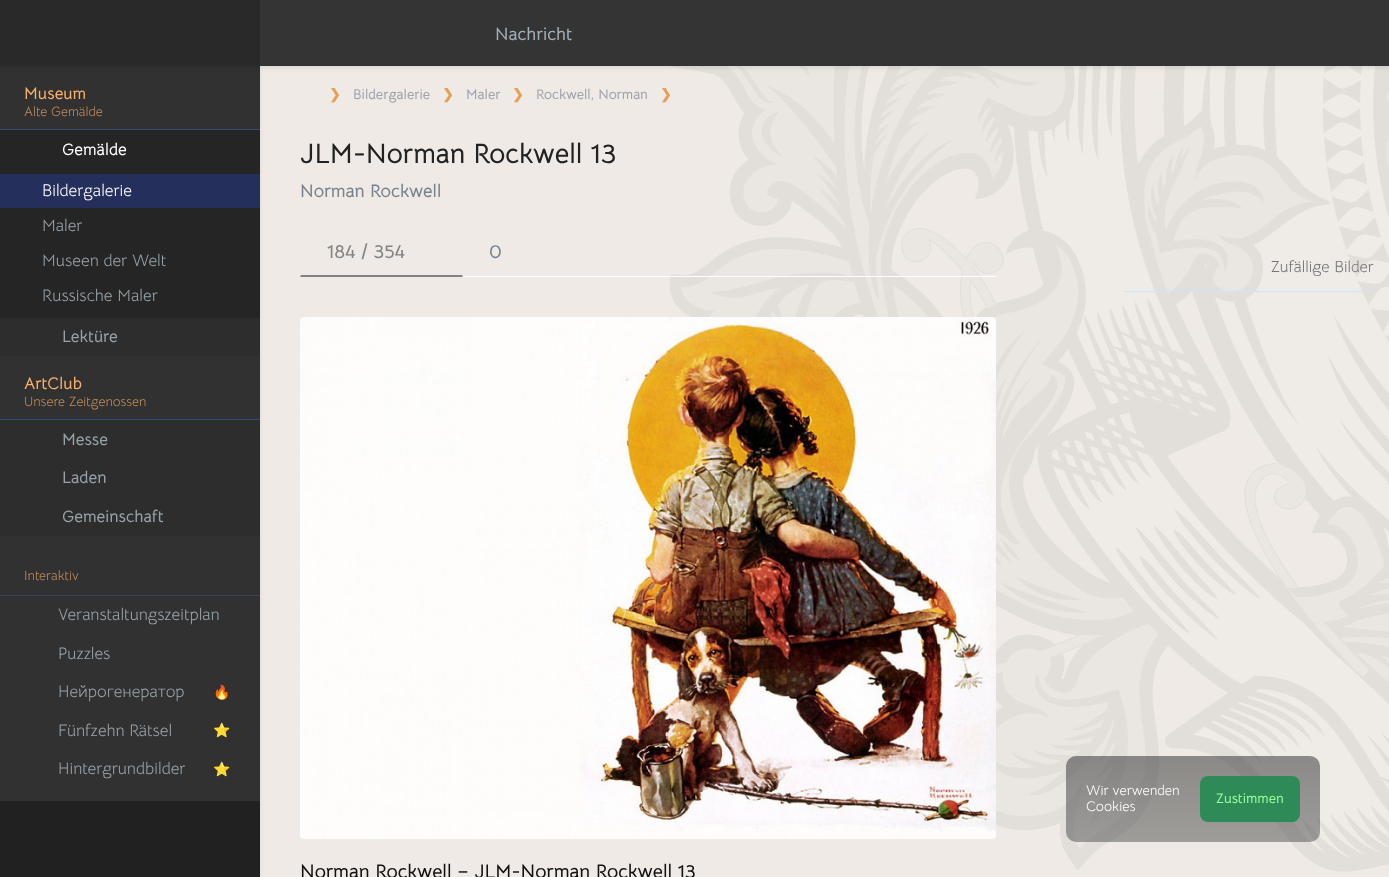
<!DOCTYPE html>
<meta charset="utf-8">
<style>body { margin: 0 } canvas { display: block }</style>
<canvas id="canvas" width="1389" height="877"></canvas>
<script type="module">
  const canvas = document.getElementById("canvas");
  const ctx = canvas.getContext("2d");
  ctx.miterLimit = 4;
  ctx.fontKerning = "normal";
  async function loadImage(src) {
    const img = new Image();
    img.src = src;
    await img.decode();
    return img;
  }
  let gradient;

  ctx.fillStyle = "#efeae5";
  ctx.fillRect(0, 0, 1389, 877);
  ctx.fillStyle = "rgba(0, 0, 0, 0.08)";
  ctx.filter = "blur(2px)";
  ctx.beginPath();
  ctx.rect(0, 68, 260, 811);
  ctx.fill();
  ctx.filter = "none";
  ctx.fillStyle = "#313131";
  ctx.fillRect(0, 66, 260, 735);
  ctx.drawImage(await loadImage("img1.png"), 669, 66, 720, 806);
  ctx.fillStyle = "rgba(0, 0, 0, 0.08)";
  ctx.filter = "blur(2px)";
  ctx.beginPath();
  ctx.rect(0, 2, 1389, 66);
  ctx.fill();
  ctx.filter = "none";
  ctx.fillStyle = "#343434";
  ctx.fillRect(260, 0, 1129, 66);
  ctx.fillStyle = "#292929";
  ctx.fillRect(0, 0, 260, 66);
  ctx.font = "bold 18px Bellota Text";
  ctx.fillStyle = "#a3afb7";
  ctx.fillText("Nachricht", 495, 40);
  ctx.fillStyle = "#354b71";
  ctx.fillRect(0, 129, 260, 1);
  ctx.font = "bold 16.75px Bellota Text";
  ctx.fillStyle = "#fab06b";
  ctx.fillText("Museum", 24, 99);
  ctx.font = "13.5px Bellota Text";
  ctx.fillStyle = "#be8a5a";
  ctx.fillText("Alte Gemälde", 24, 116);
  ctx.fillStyle = "#252525";
  ctx.fillRect(0, 130, 260, 188);
  ctx.font = "bold 16.75px Bellota Text";
  ctx.fillStyle = "#ffffff";
  ctx.fillText("Gemälde", 62, 155);
  ctx.fillStyle = "#242f5c";
  ctx.fillRect(0, 174, 260, 34);
  ctx.font = "16.75px Bellota Text";
  ctx.fillStyle = "#ffffff";
  ctx.fillText("Bildergalerie", 42, 196);
  ctx.fillStyle = "#96a1a8";
  ctx.fillText("Maler", 42, 231);
  ctx.fillText("Museen der Welt", 42, 266);
  ctx.fillText("Russische Maler", 42, 301);
  ctx.fillStyle = "#2d2d2d";
  ctx.fillRect(0, 318, 260, 38);
  ctx.font = "bold 16.75px Bellota Text";
  ctx.fillStyle = "#96a1a8";
  ctx.fillText("Lektüre", 62, 342);
  ctx.fillStyle = "#354b71";
  ctx.fillRect(0, 419, 260, 1);
  ctx.fillStyle = "#fab06b";
  ctx.fillText("ArtClub", 24, 389);
  ctx.font = "13.5px Bellota Text";
  ctx.fillStyle = "#be8a5a";
  ctx.fillText("Unsere Zeitgenossen", 24, 406);
  ctx.fillStyle = "#2d2d2d";
  ctx.fillRect(0, 420, 260, 116);
  ctx.font = "bold 16.75px Bellota Text";
  ctx.fillStyle = "#96a1a8";
  ctx.fillText("Messe", 62, 445);
  ctx.fillText("Laden", 62, 483);
  ctx.fillText("Gemeinschaft", 62, 522);
  ctx.fillStyle = "#34435e";
  ctx.fillRect(0, 595, 260, 1);
  ctx.font = "13.5px Bellota Text";
  ctx.fillStyle = "#be8a5a";
  ctx.fillText("Interaktiv", 24, 580);
  ctx.font = "16.75px Bellota Text";
  ctx.fillStyle = "#96a1a8";
  ctx.fillText("Veranstaltungszeitplan", 58, 620);
  ctx.fillText("Puzzles", 58, 659);
  ctx.fillText("Нейрогенератор", 58, 697);
  ctx.font = "14px Noto Color Emoji";
  ctx.fillText("🔥", 213, 697);
  ctx.font = "16.75px Bellota Text";
  ctx.fillText("Fünfzehn Rätsel", 58, 736);
  ctx.font = "14px Noto Color Emoji";
  ctx.fillText("⭐", 213, 735);
  ctx.font = "16.75px Bellota Text";
  ctx.fillText("Hintergrundbilder", 58, 774);
  ctx.font = "14px Noto Color Emoji";
  ctx.fillText("⭐", 213, 774);
  ctx.fillStyle = "#212121";
  ctx.fillRect(0, 801, 260, 76);
  ctx.font = "bold 14px DejaVu Sans";
  ctx.fillStyle = "#e5a055";
  ctx.fillText("❯", 329, 99);
  ctx.font = "bold 14px Bellota Text";
  ctx.fillStyle = "#a3a3ad";
  ctx.fillText("Bildergalerie", 353, 99);
  ctx.font = "bold 14px DejaVu Sans";
  ctx.fillStyle = "#e5a055";
  ctx.fillText("❯", 442, 99);
  ctx.font = "bold 14px Bellota Text";
  ctx.fillStyle = "#a3a3ad";
  ctx.fillText("Maler", 466, 99);
  ctx.font = "bold 14px DejaVu Sans";
  ctx.fillStyle = "#e5a055";
  ctx.fillText("❯", 512, 99);
  ctx.font = "bold 14px Bellota Text";
  ctx.fillStyle = "#a3a3ad";
  ctx.fillText("Rockwell, Norman", 536, 99);
  ctx.font = "bold 14px DejaVu Sans";
  ctx.fillStyle = "#e5a055";
  ctx.fillText("❯", 660, 99);
  ctx.font = "bold 28px Bellota Text";
  ctx.fillStyle = "#222222";
  ctx.fillText("JLM-Norman Rockwell 13", 300, 163);
  ctx.font = "bold 18.25px Bellota Text";
  ctx.fillStyle = "#76838f";
  ctx.fillText("Norman Rockwell", 300, 197);
  ctx.fillStyle = "#ffffff";
  ctx.fillRect(300, 276, 696, 1);
  ctx.fillStyle = "#838383";
  ctx.beginPath();
  ctx.moveTo(463, 277);
  ctx.lineTo(462, 275);
  ctx.lineTo(301, 275);
  ctx.lineTo(300, 277);
  ctx.closePath();
  ctx.fill();
  ctx.font = "bold 19.6px Bellota Text";
  ctx.fillText("184 / 354", 327, 258);
  ctx.fillStyle = "#76838f";
  ctx.fillText("0", 489, 258);
  ctx.drawImage(await loadImage("img2.png"), 300, 317, 696, 522);
  ctx.fillStyle = "#111111";
  ctx.fillText("Norman Rockwell – JLM-Norman Rockwell 13", 300, 878);
  ctx.font = "16px Bellota Text";
  ctx.fillStyle = "#757575";
  ctx.fillText("Zufällige Bilder", 1271, 272);
  ctx.fillStyle = "#c9e5ff";
  ctx.fillRect(1124, 291, 250, 1);
  gradient = ctx.createLinearGradient(1193, 842, 1193, 756);
  gradient.addColorStop(0, "rgba(85, 85, 85, 0.52)");
  gradient.addColorStop(1, "rgba(51, 51, 51, 0.53)");
  ctx.fillStyle = gradient;
  ctx.beginPath();
  ctx.roundRect(1066, 756, 254, 86, 10);
  ctx.fill();
  ctx.font = "14px Bellota Text";
  ctx.fillStyle = "#ffffff";
  ctx.fillText("Wir verwenden", 1086, 795);
  ctx.fillText("Cookies", 1086, 811);
  ctx.fillStyle = "#2e8b57";
  ctx.beginPath();
  ctx.roundRect(1200, 776, 100, 46, 8);
  ctx.fill();
  ctx.font = "bold 14px Bellota Text";
  ctx.fillStyle = "#98fb98";
  ctx.fillText("Zustimmen", 1216, 803);
</script>
